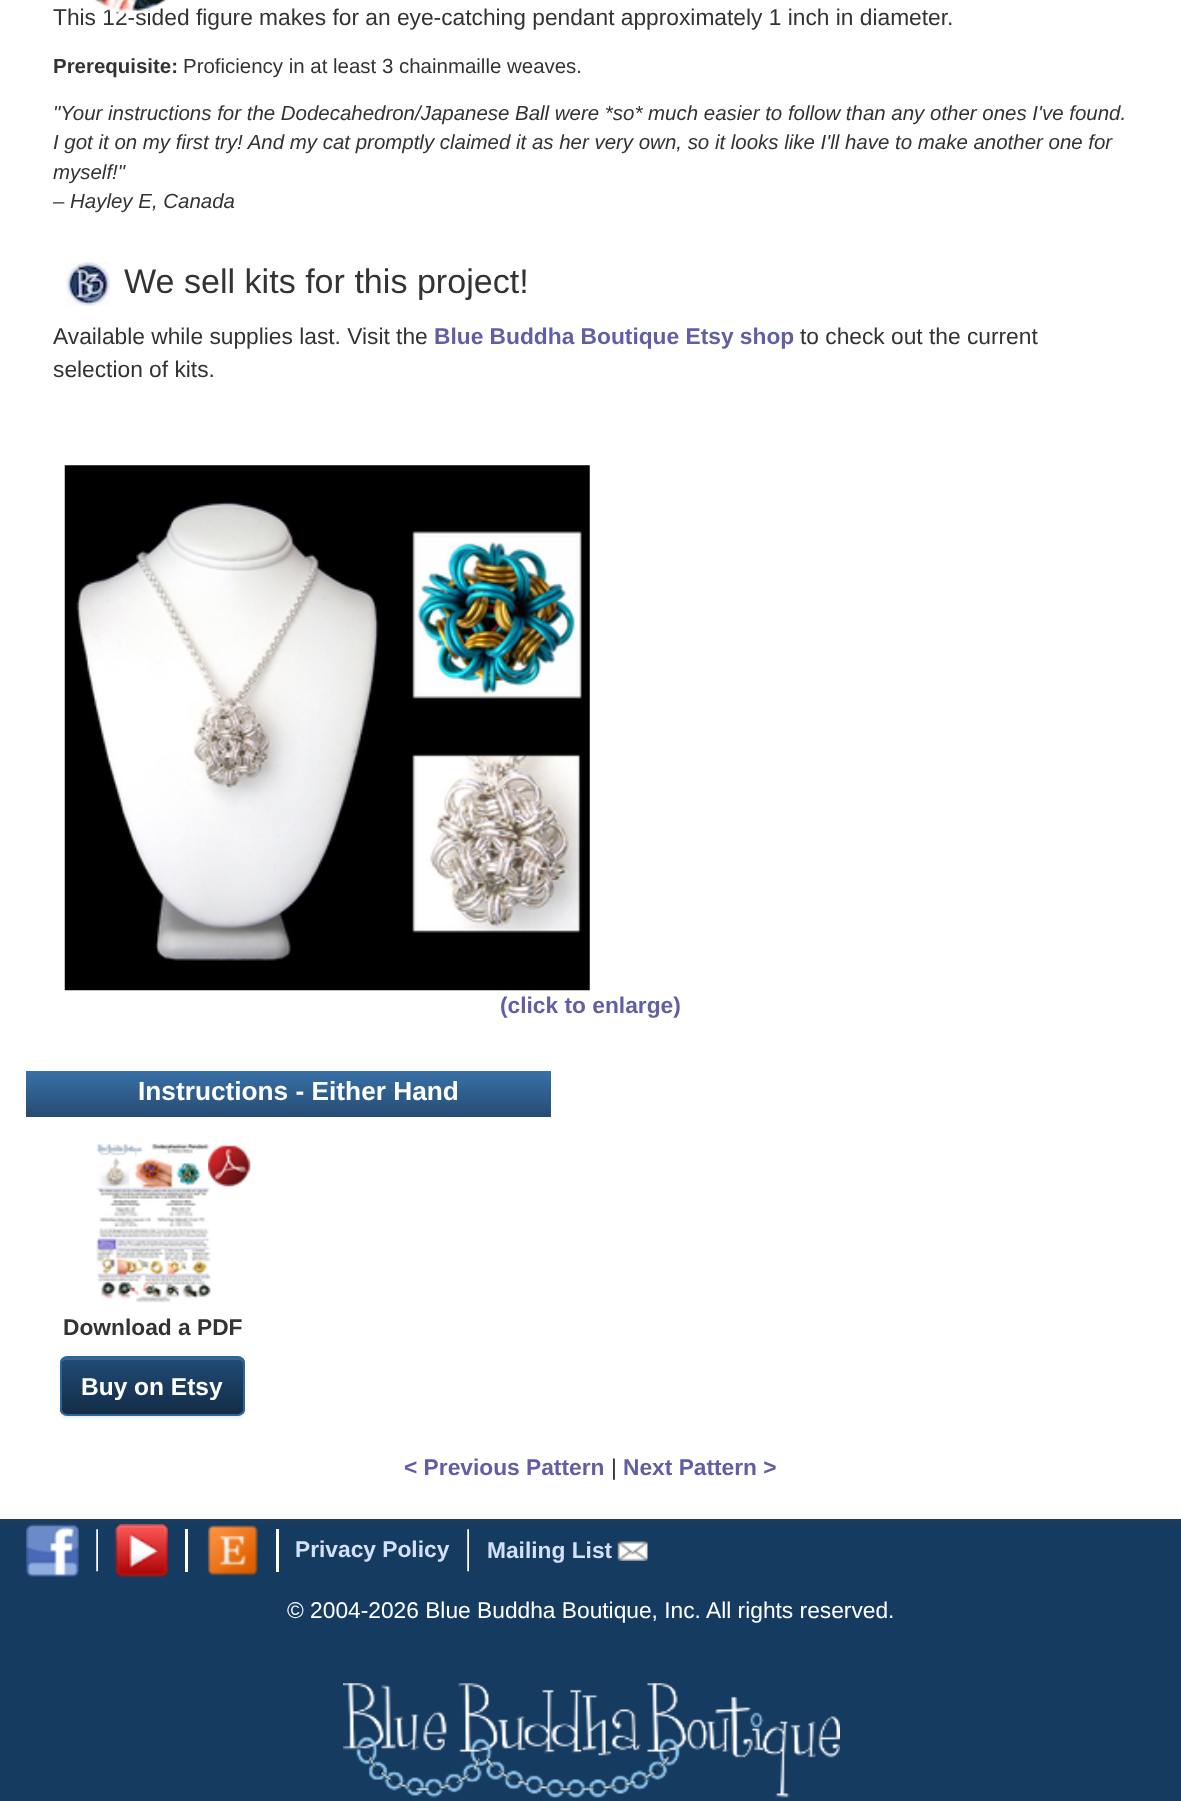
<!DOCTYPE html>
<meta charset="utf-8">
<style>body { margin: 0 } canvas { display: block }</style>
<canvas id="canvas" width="1181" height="1801"></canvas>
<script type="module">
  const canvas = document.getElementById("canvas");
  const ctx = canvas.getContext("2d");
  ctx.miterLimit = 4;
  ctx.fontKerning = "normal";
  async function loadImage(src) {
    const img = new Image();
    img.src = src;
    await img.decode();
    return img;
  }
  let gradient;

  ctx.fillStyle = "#ffffff";
  ctx.fillRect(0, 0, 1181, 1801);
  ctx.font = "22.75px Liberation Sans";
  ctx.fillStyle = "#333333";
  ctx.fillText("This 12-sided figure makes for an eye-catching pendant approximately 1 inch in diameter.", 53, 25);
  ctx.drawImage(await loadImage("img1.png"), 94, 0, 74, 15);
  ctx.font = "bold 20.47px Liberation Sans";
  ctx.fillText("Prerequisite:", 53, 73);
  ctx.font = "20.47px Liberation Sans";
  ctx.fillText("Proficiency in at least 3 chainmaille weaves.", 183, 73);
  ctx.font = "italic 20.47px Liberation Sans";
  ctx.fillText("\"Your instructions for the Dodecahedron/Japanese Ball were *so* much easier to follow than any other ones I've found.", 53, 120);
  ctx.fillText("I got it on my first try! And my cat promptly claimed it as her very own, so it looks like I'll have to make another one for", 53, 149);
  ctx.fillText("myself!\"", 53, 179);
  ctx.fillText("– Hayley E, Canada", 53, 208);
  ctx.drawImage(await loadImage("img2.png"), 66, 262, 45, 44);
  ctx.font = "34.1px Liberation Sans";
  ctx.fillText("We sell kits for this project!", 124, 293);
  ctx.font = "22.75px Liberation Sans";
  ctx.fillText("Available while supplies last. Visit the", 53, 344);
  ctx.font = "bold 22.75px Liberation Sans";
  ctx.fillStyle = "#625ea5";
  ctx.fillText("Blue Buddha Boutique Etsy shop", 434, 344);
  ctx.font = "22.75px Liberation Sans";
  ctx.fillStyle = "#333333";
  ctx.fillText("to check out the current", 800, 344);
  ctx.fillText("selection of kits.", 53, 377);
  ctx.drawImage(await loadImage("img3.png"), 64, 465, 526, 526);
  ctx.font = "bold 22.75px Liberation Sans";
  ctx.fillStyle = "#625ea5";
  ctx.fillText("(click to enlarge)", 500, 1013);
  gradient = ctx.createLinearGradient(26, 1071, 26, 1117);
  gradient.addColorStop(0, "#3870a8");
  gradient.addColorStop(1, "#264c72");
  ctx.fillStyle = gradient;
  ctx.fillRect(26, 1071, 525, 46);
  ctx.font = "bold 26.25px Liberation Sans";
  ctx.fillStyle = "#ffffff";
  ctx.fillText("Instructions - Either Hand", 138, 1100);
  ctx.drawImage(await loadImage("img4.png"), 96, 1143, 115, 160);
  ctx.drawImage(await loadImage("img5.png"), 208, 1145, 43, 42);
  ctx.font = "bold 22.75px Liberation Sans";
  ctx.fillStyle = "#333333";
  ctx.fillText("Download a PDF", 63, 1335);
  ctx.fillStyle = "rgba(0, 0, 0, 0.07)";
  ctx.filter = "blur(1px)";
  ctx.beginPath();
  ctx.roundRect(60, 1358, 185, 60, 7);
  ctx.fill();
  ctx.filter = "none";
  ctx.save();
  ctx.beginPath();
  ctx.roundRect(60, 1356, 185, 60, 7);
  ctx.clip();
  gradient = ctx.createLinearGradient(152, 1358, 152, 1414);
  gradient.addColorStop(0, "#204c76");
  gradient.addColorStop(1, "#132d47");
  ctx.fillStyle = gradient;
  ctx.fillRect(60, 1358, 185, 56);
  ctx.restore();
  ctx.fillStyle = "rgba(255, 255, 255, 0.15)";
  ctx.beginPath();
  ctx.moveTo(66, 1360);
  ctx.lineTo(238, 1360);
  ctx.bezierCurveTo(241, 1360, 243, 1362, 243, 1365);
  ctx.lineTo(243, 1363);
  ctx.bezierCurveTo(243, 1360, 241, 1358, 238, 1358);
  ctx.lineTo(66, 1358);
  ctx.bezierCurveTo(63, 1358, 61, 1360, 61, 1363);
  ctx.lineTo(61, 1365);
  ctx.bezierCurveTo(61, 1362, 64, 1360, 66, 1360);
  ctx.closePath();
  ctx.fill();
  ctx.beginPath();
  ctx.roundRect(61, 1357, 183, 58, 6);
  ctx.strokeStyle = "#2b669a";
  ctx.lineWidth = 2;
  ctx.stroke();
  ctx.font = "bold 24.5px Liberation Sans";
  ctx.fillStyle = "#ffffff";
  ctx.fillText("Buy on Etsy", 81, 1395);
  ctx.font = "bold 22.75px Liberation Sans";
  ctx.fillStyle = "#625ea5";
  ctx.fillText("< Previous Pattern", 404, 1475);
  ctx.font = "22.75px Liberation Sans";
  ctx.fillStyle = "#333333";
  ctx.fillText("|", 611, 1475);
  ctx.font = "bold 22.75px Liberation Sans";
  ctx.fillStyle = "#625ea5";
  ctx.fillText("Next Pattern >", 623, 1475);
  ctx.fillStyle = "#153b61";
  ctx.fillRect(0, 1524, 1181, 277);
  ctx.fillStyle = "#1a3d5f";
  ctx.fillRect(0, 1519, 1181, 5);
  ctx.drawImage(await loadImage("img6.png"), 26, 1524, 53, 53);
  ctx.drawImage(await loadImage("img7.png"), 96, 1529, 2, 43);
  ctx.drawImage(await loadImage("img8.png"), 115, 1524, 53, 53);
  ctx.fillStyle = "#ffffff";
  ctx.fillRect(185, 1529, 3, 43);
  ctx.drawImage(await loadImage("img9.png"), 207, 1525, 51, 51);
  ctx.fillRect(276, 1529, 3, 43);
  ctx.fillStyle = "#d2e1f9";
  ctx.fillText("Privacy Policy", 295, 1557);
  ctx.drawImage(await loadImage("img7.png"), 467, 1529, 2, 43);
  ctx.fillText("Mailing List", 487, 1558);
  ctx.drawImage(await loadImage("img10.png"), 617, 1541, 31, 20);
  ctx.font = "22.75px Liberation Sans";
  ctx.fillStyle = "#ffffff";
  ctx.fillText("© 2004-2026 Blue Buddha Boutique, Inc. All rights reserved.", 287, 1618);
  ctx.drawImage(await loadImage("img11.png"), 343, 1683, 497, 115);
</script>
